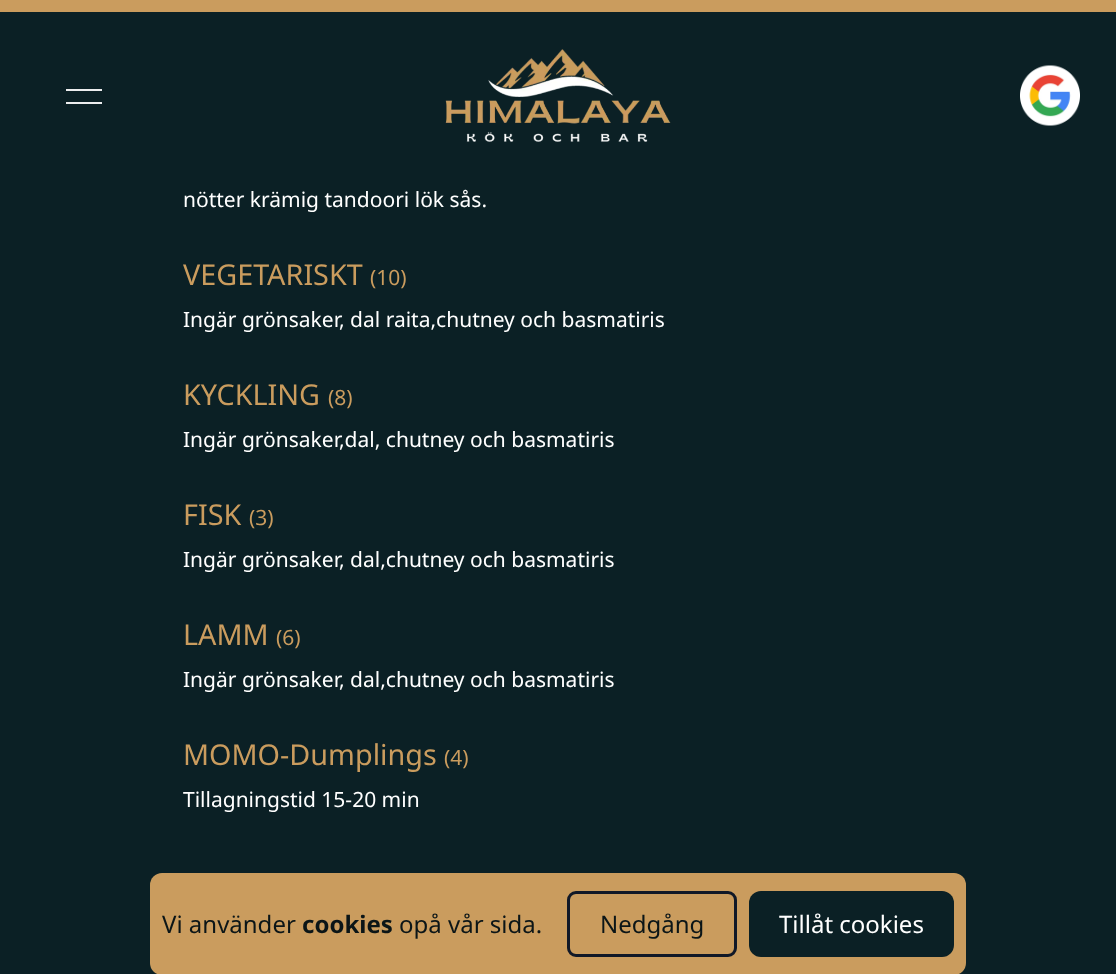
<!DOCTYPE html>
<meta charset="utf-8">
<style>body { margin: 0 } canvas { display: block }</style>
<canvas id="canvas" width="1116" height="974"></canvas>
<script type="module">
  const canvas = document.getElementById("canvas");
  const ctx = canvas.getContext("2d");
  ctx.miterLimit = 4;
  ctx.fontKerning = "normal";
  async function loadImage(src) {
    const img = new Image();
    img.src = src;
    await img.decode();
    return img;
  }

  ctx.fillStyle = "#0b2025";
  ctx.fillRect(0, 0, 1116, 974);
  ctx.fillStyle = "#ca9c5e";
  ctx.fillRect(0, 0, 1116, 12);
  ctx.fillStyle = "#ecedee";
  ctx.fillRect(66, 89, 36, 2);
  ctx.fillRect(66, 102, 36, 2);
  ctx.drawImage(await loadImage("img1.png"), 445, 49, 226, 93);
  ctx.drawImage(await loadImage("img2.png"), 1020, 65, 60, 61);
  ctx.font = "21px Noto Sans";
  ctx.fillStyle = "#ffffff";
  ctx.fillText("nötter krämig tandoori lök sås.", 183, 207);
  ctx.font = "28.75px Noto Sans";
  ctx.fillStyle = "#ca9c5e";
  ctx.fillText("VEGETARISKT", 183, 285);
  ctx.font = "21px Noto Sans";
  ctx.fillText("(10)", 370, 285);
  ctx.fillStyle = "#ffffff";
  ctx.fillText("Ingär grönsaker, dal raita,chutney och basmatiris", 183, 327);
  ctx.font = "28.75px Noto Sans";
  ctx.fillStyle = "#ca9c5e";
  ctx.fillText("KYCKLING", 183, 405);
  ctx.font = "21px Noto Sans";
  ctx.fillText("(8)", 328, 405);
  ctx.fillStyle = "#ffffff";
  ctx.fillText("Ingär grönsaker,dal, chutney och basmatiris", 183, 447);
  ctx.font = "28.75px Noto Sans";
  ctx.fillStyle = "#ca9c5e";
  ctx.fillText("FISK", 183, 525);
  ctx.font = "21px Noto Sans";
  ctx.fillText("(3)", 249, 525);
  ctx.fillStyle = "#ffffff";
  ctx.fillText("Ingär grönsaker, dal,chutney och basmatiris", 183, 567);
  ctx.font = "28.75px Noto Sans";
  ctx.fillStyle = "#ca9c5e";
  ctx.fillText("LAMM", 183, 645);
  ctx.font = "21px Noto Sans";
  ctx.fillText("(6)", 276, 645);
  ctx.fillStyle = "#ffffff";
  ctx.fillText("Ingär grönsaker, dal,chutney och basmatiris", 183, 687);
  ctx.font = "28.75px Noto Sans";
  ctx.fillStyle = "#ca9c5e";
  ctx.fillText("MOMO-Dumplings", 183, 765);
  ctx.font = "21px Noto Sans";
  ctx.fillText("(4)", 444, 765);
  ctx.fillStyle = "#ffffff";
  ctx.fillText("Tillagningstid 15-20 min", 183, 807);
  ctx.fillStyle = "#ca9c5e";
  ctx.beginPath();
  ctx.roundRect(150, 873, 816, 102, 12);
  ctx.fill();
  ctx.font = "24px Noto Sans";
  ctx.fillStyle = "#0b1517";
  ctx.fillText("Vi använder", 162, 933);
  ctx.font = "bold 24px Noto Sans";
  ctx.fillText("cookies", 302, 933);
  ctx.font = "24px Noto Sans";
  ctx.fillText("opå vår sida.", 399, 933);
  ctx.beginPath();
  ctx.roundRect(568.5, 892.5, 167, 63, 7.5);
  ctx.strokeStyle = "#111827";
  ctx.lineWidth = 3;
  ctx.stroke();
  ctx.fillText("Nedgång", 600, 933);
  ctx.fillStyle = "#0b2025";
  ctx.beginPath();
  ctx.roundRect(749, 891, 205, 66, 12);
  ctx.fill();
  ctx.fillStyle = "#ffffff";
  ctx.fillText("Tillåt cookies", 779, 933);
</script>
